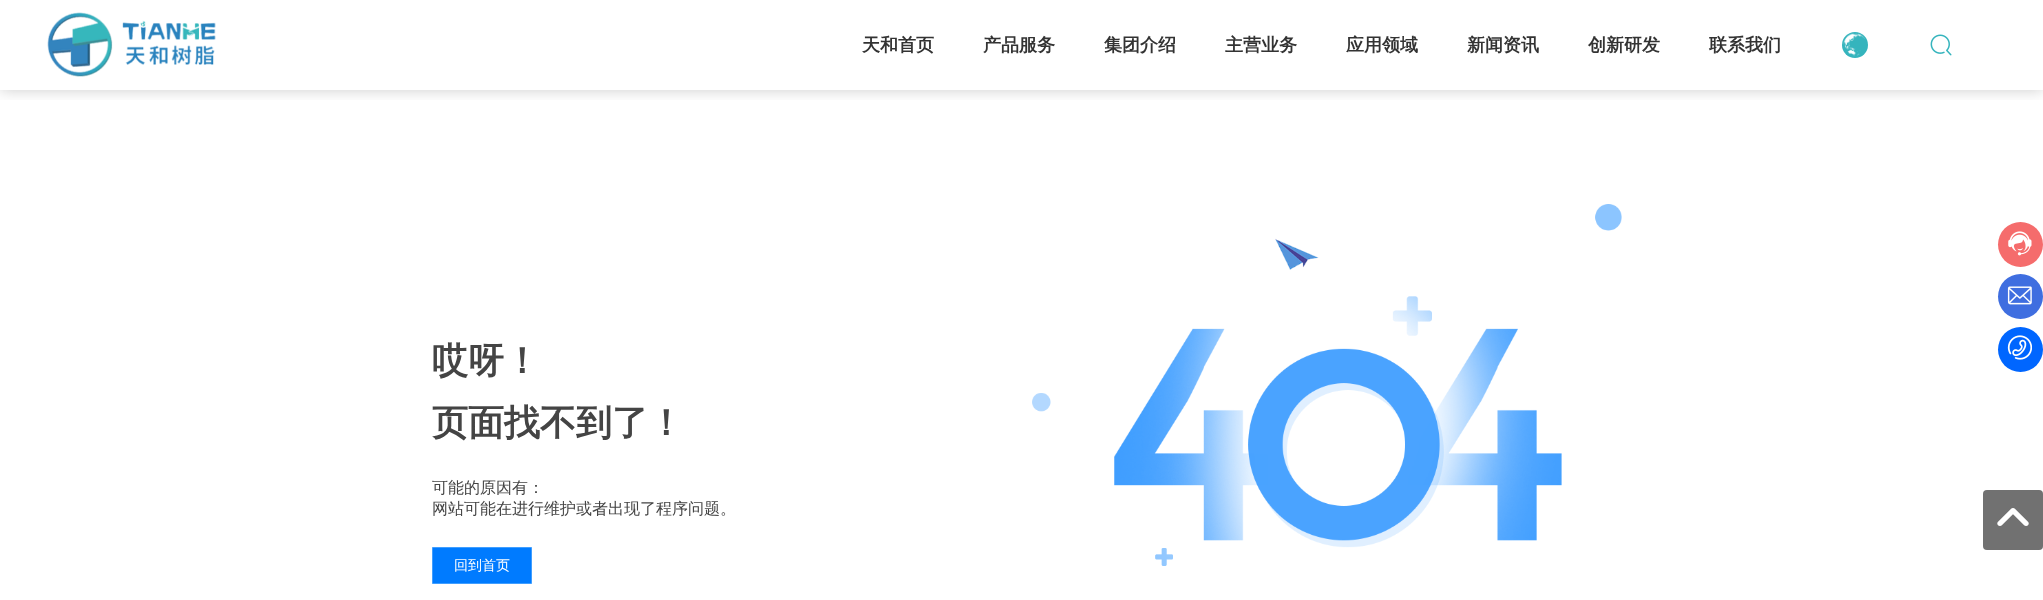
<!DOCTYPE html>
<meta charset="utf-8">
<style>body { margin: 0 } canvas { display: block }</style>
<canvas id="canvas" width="2043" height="600"></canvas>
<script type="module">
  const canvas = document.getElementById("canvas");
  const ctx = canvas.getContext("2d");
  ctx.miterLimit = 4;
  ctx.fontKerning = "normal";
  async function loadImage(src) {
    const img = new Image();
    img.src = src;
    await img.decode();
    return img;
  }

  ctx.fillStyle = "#ffffff";
  ctx.fillRect(0, 0, 2043, 600);
  ctx.save();
  ctx.beginPath();
  ctx.rect(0, 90, 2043, 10);
  ctx.clip();
  ctx.fillStyle = "rgba(0, 0, 0, 0.2)";
  ctx.filter = "blur(7.5px)";
  ctx.beginPath();
  ctx.rect(0, 0, 2043, 90);
  ctx.fill();
  ctx.filter = "none";
  ctx.restore();
  ctx.drawImage(await loadImage("img1.png"), 47, 12, 169, 65);
  ctx.font = "bold 18px WenQuanYi Zen Hei";
  ctx.fillStyle = "#333333";
  ctx.fillText("天和首页", 862, 51);
  ctx.fillText("产品服务", 983, 51);
  ctx.fillText("集团介绍", 1104, 51);
  ctx.fillText("主营业务", 1225, 51);
  ctx.fillText("应用领域", 1346, 51);
  ctx.fillText("新闻资讯", 1467, 51);
  ctx.fillText("创新研发", 1588, 51);
  ctx.fillText("联系我们", 1709, 51);
  ctx.fillStyle = "#35b4bd";
  ctx.beginPath();
  ctx.arc(1855, 45, 13, 0, Math.PI * 2);
  ctx.fill();
  ctx.drawImage(await loadImage("img2.png"), 1843, 33, 22, 24);
  ctx.drawImage(await loadImage("img3.png"), 1930, 34, 22, 22);
  ctx.font = "bold 36px WenQuanYi Zen Hei";
  ctx.fillStyle = "#444444";
  ctx.fillText("哎呀！", 432, 373);
  ctx.fillText("页面找不到了！", 432, 435);
  ctx.font = "500 16px WenQuanYi Zen Hei";
  ctx.fillText("可能的原因有：", 432, 493);
  ctx.fillText("网站可能在进行维护或者出现了程序问题。", 432, 514);
  ctx.fillStyle = "#007bff";
  ctx.beginPath();
  ctx.rect(432.5, 547.5, 99, 36);
  ctx.fill();
  ctx.strokeStyle = "#409eff";
  ctx.stroke();
  ctx.font = "500 14px WenQuanYi Zen Hei";
  ctx.fillStyle = "#ffffff";
  ctx.fillText("回到首页", 454, 570);
  ctx.drawImage(await loadImage("img4.png"), 1032, 204, 590, 362);
  ctx.fillStyle = "#717171";
  ctx.beginPath();
  ctx.roundRect(1983, 490, 60, 60, 4);
  ctx.fill();
  ctx.drawImage(await loadImage("img5.png"), 1997, 508, 32, 18);
  ctx.fillStyle = "#f56c6c";
  ctx.beginPath();
  ctx.arc(2020.5, 244.5, 22.5, 0, Math.PI * 2);
  ctx.fill();
  ctx.drawImage(await loadImage("img6.png"), 2008, 231, 24, 25);
  ctx.fillStyle = "#3f6ee0";
  ctx.beginPath();
  ctx.arc(2020.5, 296.5, 22.5, 0, Math.PI * 2);
  ctx.fill();
  ctx.drawImage(await loadImage("img7.png"), 2007, 286, 25, 19);
  ctx.fillStyle = "#0066ff";
  ctx.beginPath();
  ctx.arc(2020.5, 349.5, 22.5, 0, Math.PI * 2);
  ctx.fill();
  ctx.drawImage(await loadImage("img8.png"), 2007, 335, 25, 25);
</script>
